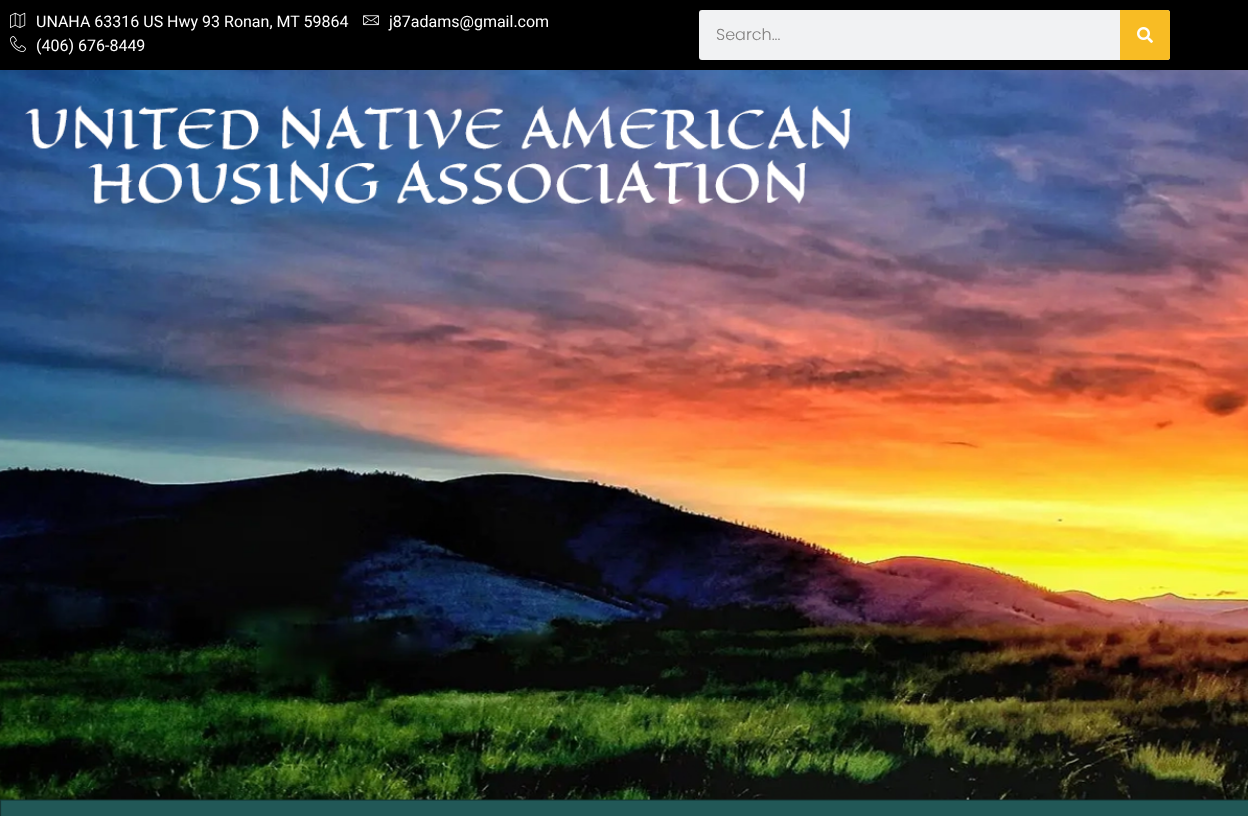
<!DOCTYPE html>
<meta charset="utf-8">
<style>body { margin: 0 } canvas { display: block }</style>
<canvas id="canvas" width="1248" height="816"></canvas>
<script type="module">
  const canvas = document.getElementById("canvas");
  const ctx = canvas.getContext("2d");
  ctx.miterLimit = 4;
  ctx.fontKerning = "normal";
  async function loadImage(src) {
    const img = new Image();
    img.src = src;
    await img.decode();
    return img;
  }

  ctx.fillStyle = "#000000";
  ctx.fillRect(0, 0, 1248, 816);
  ctx.drawImage(await loadImage("img1.png"), 10, 12, 16, 16);
  ctx.font = "16px Roboto";
  ctx.fillStyle = "#ffffff";
  ctx.fillText("UNAHA 63316 US Hwy 93 Ronan, MT 59864", 36, 27);
  ctx.drawImage(await loadImage("img2.png"), 363, 15, 16, 11);
  ctx.fillText("j87adams@gmail.com", 389, 27);
  ctx.drawImage(await loadImage("img3.png"), 10, 36, 16, 16);
  ctx.fillText("(406) 676-8449", 36, 51);
  ctx.fillStyle = "#f1f2f3";
  ctx.beginPath();
  ctx.roundRect(699, 10, 471, 50, 3);
  ctx.fill();
  ctx.font = "300 16px Poppins";
  ctx.fillStyle = "#807f7e";
  ctx.fillText("Search...", 716, 40);
  ctx.fillStyle = "#f8bc24";
  ctx.beginPath();
  ctx.roundRect(1120, 10, 50, 50, [0, 3, 3, 0]);
  ctx.fill();
  ctx.drawImage(await loadImage("img4.png"), 1137, 27, 16, 16);
  ctx.drawImage(await loadImage("img5.png"), 0, 70, 1248, 746);
</script>
